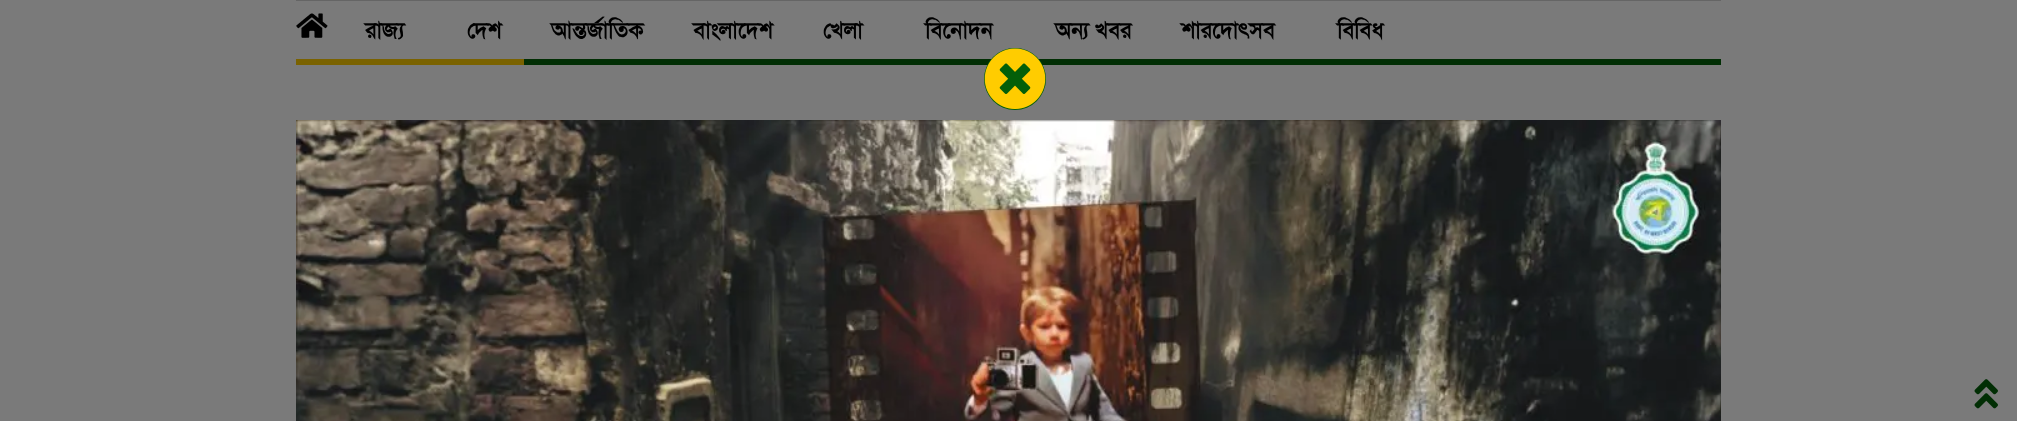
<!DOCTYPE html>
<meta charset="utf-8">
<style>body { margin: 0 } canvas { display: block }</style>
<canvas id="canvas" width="2017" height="421"></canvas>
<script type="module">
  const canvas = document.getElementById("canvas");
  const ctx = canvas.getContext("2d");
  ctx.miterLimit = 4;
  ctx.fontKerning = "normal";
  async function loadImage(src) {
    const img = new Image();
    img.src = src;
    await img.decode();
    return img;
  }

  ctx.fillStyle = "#7a7a7a";
  ctx.fillRect(0, 0, 2017, 421);
  ctx.fillStyle = "#656565";
  ctx.fillRect(296, 0, 1425, 1);
  ctx.drawImage(await loadImage("img1.png"), 296, 13, 32, 25);
  ctx.font = "bold 22.5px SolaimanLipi";
  ctx.fillStyle = "#000000";
  ctx.fillText("রাজ্য", 365, 38);
  ctx.fillText("দেশ", 467, 38);
  ctx.fillText("আন্তর্জাতিক", 551, 38);
  ctx.fillText("বাংলাদেশ", 693, 38);
  ctx.fillText("খেলা", 823, 38);
  ctx.fillText("বিনোদন", 925, 38);
  ctx.fillText("অন্য খবর", 1055, 38);
  ctx.fillText("শারদোৎসব", 1181, 38);
  ctx.fillText("বিবিধ", 1337, 38);
  ctx.fillStyle = "#7a6200";
  ctx.fillRect(296, 59, 228, 6);
  ctx.fillStyle = "#012e04";
  ctx.fillRect(524, 59, 1197, 6);
  ctx.fillStyle = "#035f08";
  ctx.beginPath();
  ctx.arc(1015, 79, 31, 0, Math.PI * 2);
  ctx.fill();
  ctx.drawImage(await loadImage("img2.png"), 984, 48, 62, 61);
  ctx.drawImage(await loadImage("img3.png"), 296, 120, 1425, 301);
  ctx.drawImage(await loadImage("img4.png"), 1974, 379, 24, 30);
</script>
